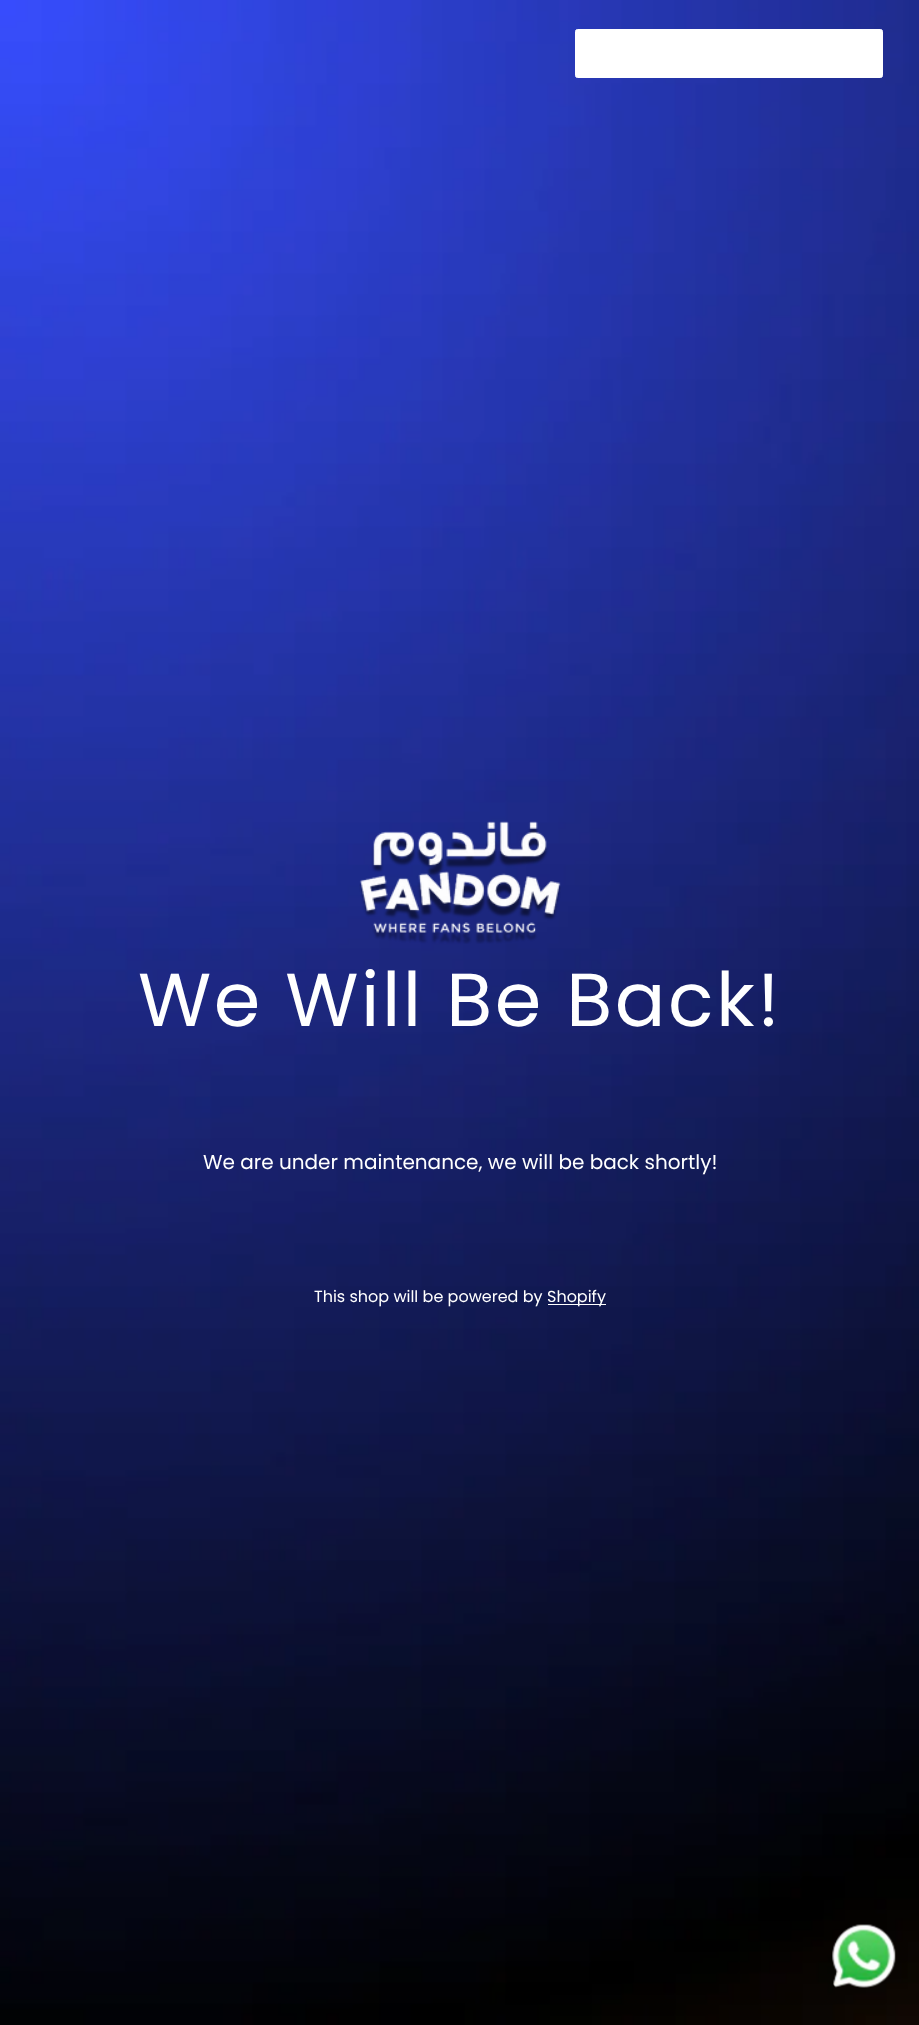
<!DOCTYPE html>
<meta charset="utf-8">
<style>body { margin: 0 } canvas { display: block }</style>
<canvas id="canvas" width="919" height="2025"></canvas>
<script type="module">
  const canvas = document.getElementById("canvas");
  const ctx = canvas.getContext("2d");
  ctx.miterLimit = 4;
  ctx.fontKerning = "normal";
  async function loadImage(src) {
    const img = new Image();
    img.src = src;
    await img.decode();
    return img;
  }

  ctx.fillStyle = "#ffffff";
  ctx.fillRect(0, 0, 919, 2025);
  ctx.drawImage(await loadImage("img1.png"), 0, 0, 919, 2025);
  ctx.beginPath();
  ctx.roundRect(575.5, 29.5, 307, 48, 2);
  ctx.fill();
  ctx.strokeStyle = "#ffffff";
  ctx.stroke();
  ctx.drawImage(await loadImage("img2.png"), 359, 821, 202, 123);
  ctx.letterSpacing = "2.5px";
  ctx.font = "75px Poppins";
  ctx.fillText("We Will Be Back!", 138, 1026);
  ctx.letterSpacing = "0px";
  ctx.font = "20px Poppins";
  ctx.fillText("We are under maintenance, we will be back shortly!", 203, 1169);
  ctx.font = "16px Poppins";
  ctx.fillText("This shop will be powered by", 314, 1302);
  ctx.fillRect(548, 1304, 58, 1);
  ctx.fillText("Shopify", 547, 1302);
  ctx.drawImage(await loadImage("img3.png"), 832, 1924, 64, 64);
</script>
